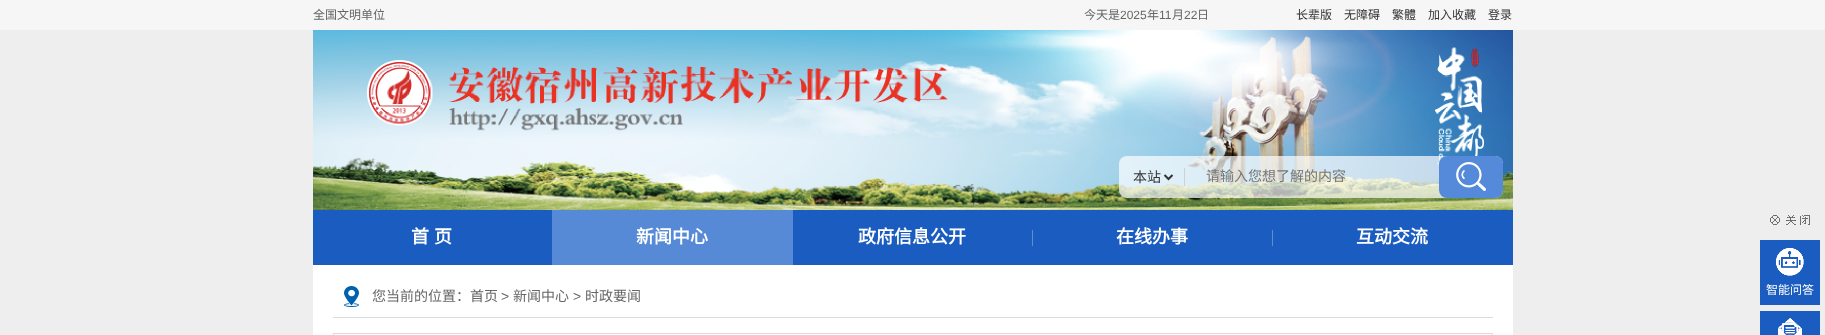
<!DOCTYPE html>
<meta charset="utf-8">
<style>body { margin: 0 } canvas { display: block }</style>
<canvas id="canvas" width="1825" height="335"></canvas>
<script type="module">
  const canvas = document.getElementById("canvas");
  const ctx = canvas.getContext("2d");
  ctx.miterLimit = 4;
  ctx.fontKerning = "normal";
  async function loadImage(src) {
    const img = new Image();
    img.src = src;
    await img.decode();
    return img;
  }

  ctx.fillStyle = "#eeeeee";
  ctx.fillRect(0, 0, 1825, 335);
  ctx.fillStyle = "#f6f6f6";
  ctx.fillRect(0, 0, 1825, 30);
  ctx.font = "12px Noto Sans CJK SC";
  ctx.fillStyle = "#666666";
  ctx.fillText("全国文明单位", 313, 19);
  ctx.fillText("今天是", 1084, 19);
  ctx.font = "12px Liberation Sans";
  ctx.fillText("2025", 1120, 19);
  ctx.font = "12px Noto Sans CJK SC";
  ctx.fillText("年", 1147, 19);
  ctx.font = "12px Liberation Sans";
  ctx.fillText("11", 1159, 19);
  ctx.font = "12px Noto Sans CJK SC";
  ctx.fillText("月", 1172, 19);
  ctx.font = "12px Liberation Sans";
  ctx.fillText("22", 1184, 19);
  ctx.font = "12px Noto Sans CJK SC";
  ctx.fillText("日", 1197, 19);
  ctx.fillStyle = "#333333";
  ctx.fillText("长辈版", 1296, 19);
  ctx.fillText("无障碍", 1344, 19);
  ctx.fillText("繁體", 1392, 19);
  ctx.fillText("加入收藏", 1428, 19);
  ctx.fillText("登录", 1488, 19);
  ctx.drawImage(await loadImage("img1.png"), 313, 30, 1200, 180);
  ctx.fillStyle = "rgba(255, 255, 255, 0.7)";
  ctx.beginPath();
  ctx.roundRect(1119, 156, 384, 42, 8);
  ctx.fill();
  ctx.fillStyle = "#cfd0d1";
  ctx.fillRect(1184, 168, 1, 18);
  ctx.beginPath();
  ctx.moveTo(1164.5, 175);
  ctx.lineTo(1168.5, 179);
  ctx.lineTo(1172.5, 175);
  ctx.strokeStyle = "#333333";
  ctx.lineWidth = 2;
  ctx.stroke();
  ctx.font = "14px Noto Sans CJK SC";
  ctx.fillStyle = "#333333";
  ctx.fillText("本站", 1133, 182);
  ctx.fillStyle = "#757575";
  ctx.fillText("请输入您想了解的内容", 1206, 181);
  ctx.fillStyle = "#558ada";
  ctx.beginPath();
  ctx.roundRect(1439, 156, 64, 42, 8);
  ctx.fill();
  ctx.drawImage(await loadImage("img2.png"), 1456, 162, 30, 29);
  ctx.fillStyle = "#1a5cbf";
  ctx.fillRect(313, 210, 1200, 55);
  ctx.wordSpacing = "1px";
  ctx.font = "bold 18px Noto Sans CJK SC";
  ctx.fillStyle = "#ffffff";
  ctx.fillText("首 页", 411, 243);
  ctx.fillStyle = "#568ad6";
  ctx.fillRect(552, 210, 241, 55);
  ctx.wordSpacing = "0px";
  ctx.fillStyle = "#ffffff";
  ctx.fillText("新闻中心", 636, 243);
  ctx.fillStyle = "#5f8dd2";
  ctx.fillRect(1032, 230, 1, 16);
  ctx.fillStyle = "#ffffff";
  ctx.fillText("政府信息公开", 858, 243);
  ctx.fillStyle = "#5f8dd2";
  ctx.fillRect(1272, 230, 1, 16);
  ctx.fillStyle = "#ffffff";
  ctx.fillText("在线办事", 1116, 243);
  ctx.fillText("互动交流", 1356, 243);
  ctx.fillRect(313, 265, 1200, 70);
  ctx.drawImage(await loadImage("img3.png"), 344, 286, 15, 21);
  ctx.fillStyle = "#dddddd";
  ctx.fillRect(333, 317, 1160, 1);
  ctx.font = "14px Noto Sans CJK SC";
  ctx.fillStyle = "#666666";
  ctx.fillText("您当前的位置：首页", 372, 301);
  ctx.font = "14px Liberation Sans";
  ctx.fillText(">", 501, 301);
  ctx.font = "14px Noto Sans CJK SC";
  ctx.fillText("新闻中心", 513, 301);
  ctx.font = "14px Liberation Sans";
  ctx.fillText(">", 573, 301);
  ctx.font = "14px Noto Sans CJK SC";
  ctx.fillText("时政要闻", 585, 301);
  ctx.strokeStyle = "#dcdcdc";
  ctx.lineWidth = 1;
  ctx.strokeRect(333.5, 333.5, 1159, 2);
  ctx.drawImage(await loadImage("img4.png"), 1770, 215, 40, 10);
  ctx.fillStyle = "#1a5cbf";
  ctx.fillRect(1760, 240, 60, 65);
  ctx.drawImage(await loadImage("img5.png"), 1776, 248, 28, 28);
  ctx.font = "12px Noto Sans CJK SC";
  ctx.fillStyle = "#ffffff";
  ctx.fillText("智能问答", 1766, 294);
  ctx.fillStyle = "#1a5cbf";
  ctx.fillRect(1760, 311, 60, 24);
  ctx.drawImage(await loadImage("img6.png"), 1778, 318, 24, 17);
</script>
